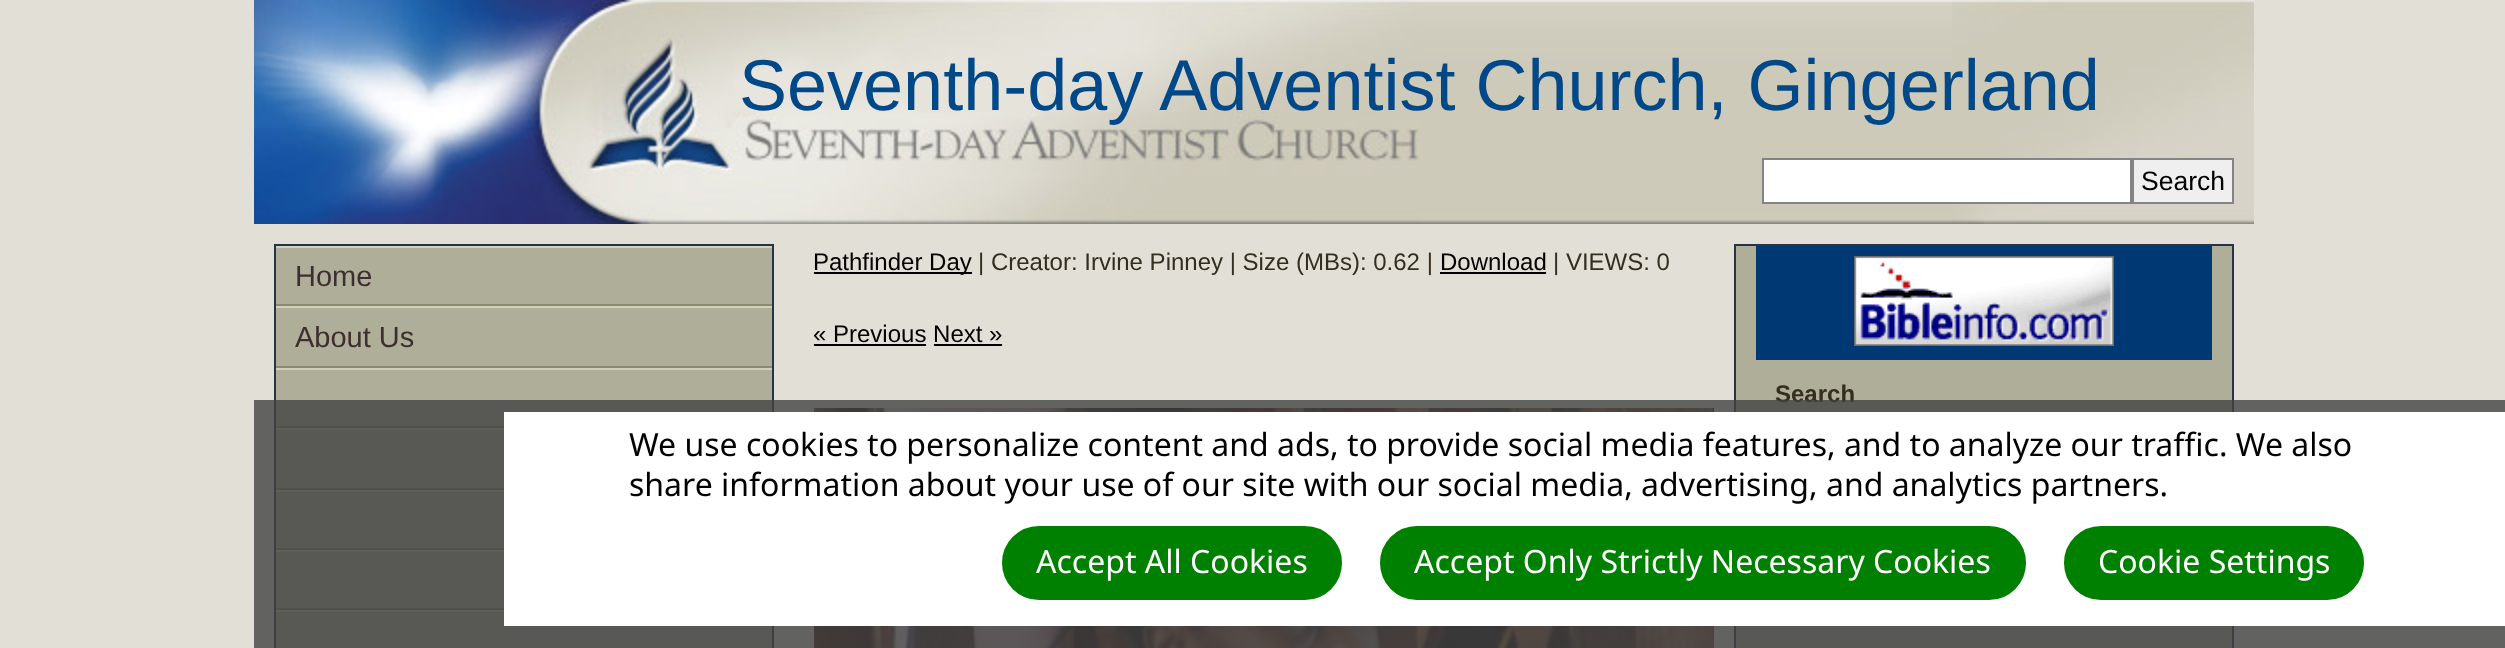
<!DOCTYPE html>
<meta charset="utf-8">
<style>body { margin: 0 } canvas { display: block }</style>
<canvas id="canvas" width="2505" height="648"></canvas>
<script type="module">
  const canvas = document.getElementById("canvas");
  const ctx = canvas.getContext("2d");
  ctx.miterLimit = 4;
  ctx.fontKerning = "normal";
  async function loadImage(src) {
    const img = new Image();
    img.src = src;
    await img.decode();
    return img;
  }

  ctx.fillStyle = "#e2dfd6";
  ctx.fillRect(0, 0, 2505, 648);
  ctx.drawImage(await loadImage("img1.png"), 1419, 0, 533, 224);
  ctx.drawImage(await loadImage("img2.png"), 254, 0, 1165, 224);
  ctx.drawImage(await loadImage("img3.png"), 1952, 0, 302, 224);
  ctx.font = "72px Liberation Sans";
  ctx.fillStyle = "#014888";
  ctx.fillText("Seventh-day Adventist Church, Gingerland", 739, 110);
  ctx.fillStyle = "#ffffff";
  ctx.beginPath();
  ctx.rect(1763, 159, 368, 44);
  ctx.fill();
  ctx.strokeStyle = "#848484";
  ctx.lineWidth = 2;
  ctx.stroke();
  ctx.fillStyle = "#efefef";
  ctx.beginPath();
  ctx.rect(2133, 159, 100, 44);
  ctx.fill();
  ctx.stroke();
  ctx.font = "26.5px Liberation Sans";
  ctx.fillStyle = "#000000";
  ctx.fillText("Search", 2141, 190);
  ctx.fillStyle = "#afae99";
  ctx.fillRect(276, 248, 496, 400);
  ctx.strokeStyle = "#273446";
  ctx.strokeRect(275, 245, 498, 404);
  ctx.fillStyle = "#d1d0b9";
  ctx.fillRect(276, 246, 496, 2);
  ctx.fillStyle = "#8b8a71";
  ctx.fillRect(276, 304, 496, 2);
  ctx.font = "29px Liberation Sans";
  ctx.fillStyle = "#3d2f30";
  ctx.fillText("Home", 295, 286);
  ctx.fillStyle = "#d1d0b9";
  ctx.fillRect(276, 306, 496, 2);
  ctx.fillStyle = "#8b8a71";
  ctx.fillRect(276, 366, 496, 2);
  ctx.fillStyle = "#3d2f30";
  ctx.fillText("About Us", 295, 347);
  ctx.fillStyle = "#d1d0b9";
  ctx.fillRect(276, 368, 496, 2);
  ctx.fillStyle = "#8b8a71";
  ctx.fillRect(276, 426, 228, 2);
  ctx.fillStyle = "#d1d0b9";
  ctx.fillRect(276, 428, 228, 2);
  ctx.fillStyle = "#8b8a71";
  ctx.fillRect(276, 488, 228, 2);
  ctx.fillStyle = "#d1d0b9";
  ctx.fillRect(276, 490, 228, 2);
  ctx.fillStyle = "#8b8a71";
  ctx.fillRect(276, 548, 228, 2);
  ctx.fillStyle = "#d1d0b9";
  ctx.fillRect(276, 550, 228, 2);
  ctx.fillStyle = "#8b8a71";
  ctx.fillRect(276, 608, 228, 2);
  ctx.fillStyle = "#d1d0b9";
  ctx.fillRect(276, 610, 228, 2);
  ctx.fillStyle = "#000000";
  ctx.fillRect(814, 272, 158, 2);
  ctx.font = "24px Liberation Sans";
  ctx.fillText("Pathfinder Day", 813, 270);
  ctx.fillStyle = "#352e1f";
  ctx.fillText("| Creator: Irvine Pinney | Size (MBs): 0.62 |", 978, 270);
  ctx.fillStyle = "#000000";
  ctx.fillText("Download", 1440, 270);
  ctx.fillRect(1440, 272, 106, 2);
  ctx.fillStyle = "#352e1f";
  ctx.fillText("| VIEWS: 0", 1553, 270);
  ctx.fillStyle = "#000000";
  ctx.fillText("« Previous Next »", 813, 342);
  ctx.fillRect(814, 344, 112, 2);
  ctx.fillRect(934, 344, 68, 2);
  ctx.drawImage(await loadImage("img4.png"), 814, 408, 900, 240);
  ctx.fillStyle = "#afae99";
  ctx.beginPath();
  ctx.rect(1735, 245, 498, 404);
  ctx.fill();
  ctx.stroke();
  ctx.fillStyle = "#003874";
  ctx.fillRect(1756, 246, 456, 114);
  ctx.drawImage(await loadImage("img5.png"), 1854, 256, 260, 90);
  ctx.font = "bold 24px Liberation Sans";
  ctx.fillStyle = "#352e1f";
  ctx.fillText("Search", 1775, 402);
  ctx.fillStyle = "rgba(66, 66, 66, 0.8)";
  ctx.fillRect(254, 400, 2251, 248);
  ctx.fillStyle = "#ffffff";
  ctx.fillRect(504, 412, 2001, 214);
  ctx.font = "32px Noto Sans";
  ctx.fillStyle = "#000000";
  ctx.fillText("We use cookies to personalize content and ads, to provide social media features, and to analyze our traffic. We also", 629, 456);
  ctx.fillText("share information about your use of our site with our social media, advertising, and analytics partners.", 629, 496);
  ctx.fillStyle = "#008000";
  ctx.beginPath();
  ctx.roundRect(1003, 527, 338, 72, 36);
  ctx.fill();
  ctx.strokeStyle = "#008000";
  ctx.stroke();
  ctx.fillStyle = "#ffffff";
  ctx.fillText("Accept All Cookies", 1036, 573);
  ctx.fillStyle = "#008000";
  ctx.beginPath();
  ctx.roundRect(1381, 527, 644, 72, 36);
  ctx.fill();
  ctx.stroke();
  ctx.fillStyle = "#ffffff";
  ctx.fillText("Accept Only Strictly Necessary Cookies", 1414, 573);
  ctx.fillStyle = "#008000";
  ctx.beginPath();
  ctx.roundRect(2065, 527, 298, 72, 36);
  ctx.fill();
  ctx.stroke();
  ctx.fillStyle = "#ffffff";
  ctx.fillText("Cookie Settings", 2098, 573);
</script>
